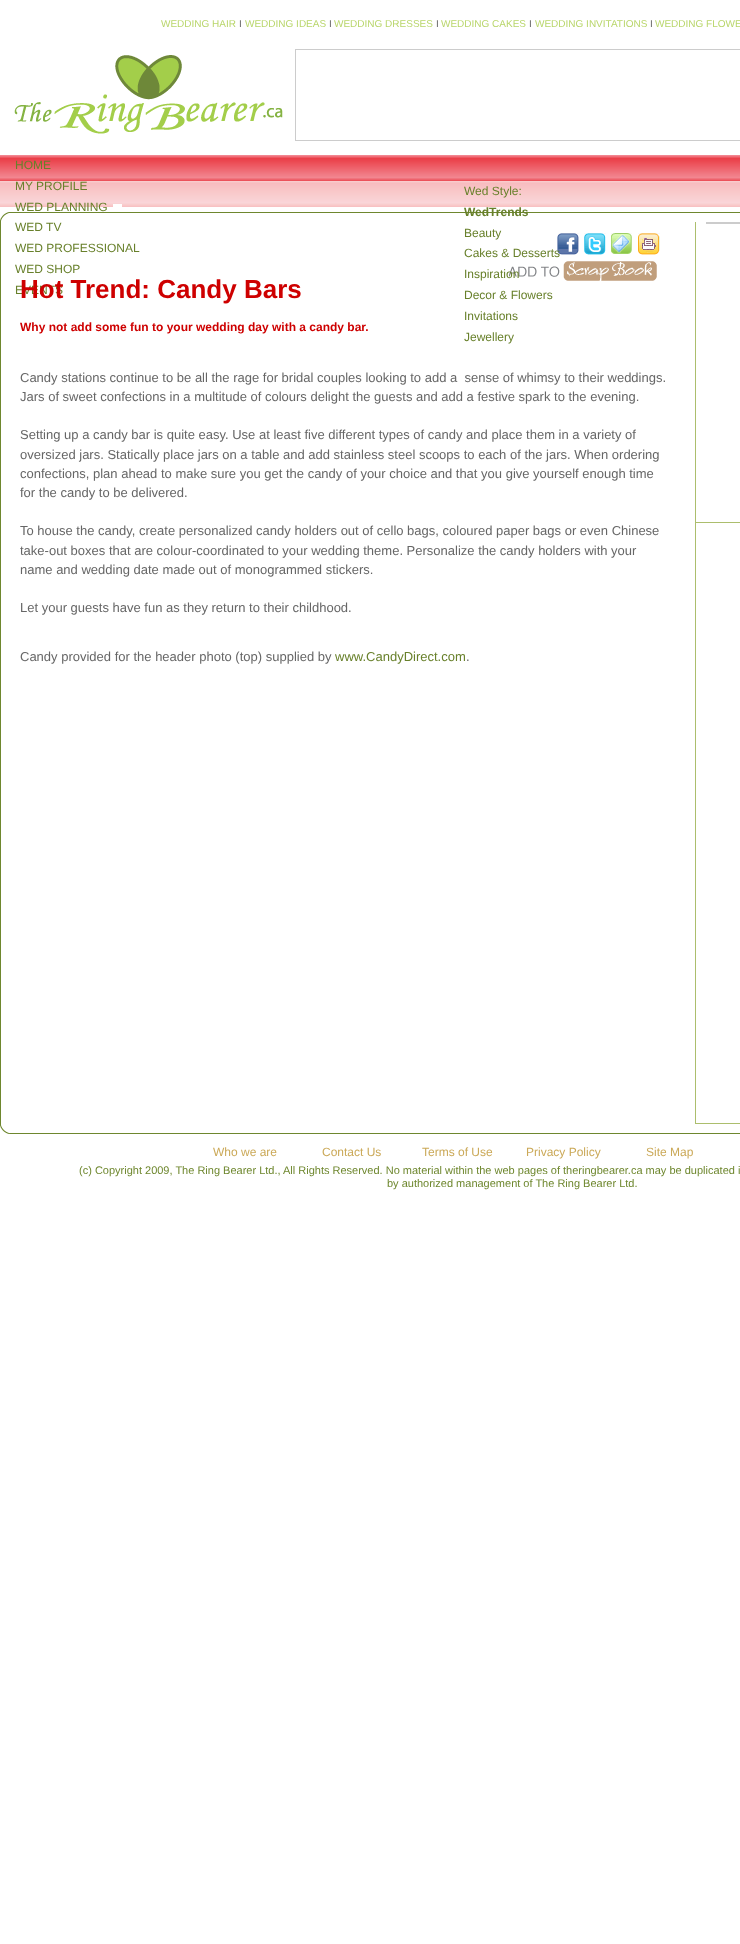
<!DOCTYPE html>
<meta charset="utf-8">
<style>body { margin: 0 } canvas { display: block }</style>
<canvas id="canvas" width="740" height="1944"></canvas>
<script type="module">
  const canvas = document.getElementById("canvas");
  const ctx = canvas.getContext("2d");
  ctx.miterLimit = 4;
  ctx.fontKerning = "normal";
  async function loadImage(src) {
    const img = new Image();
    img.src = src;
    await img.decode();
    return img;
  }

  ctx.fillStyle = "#ffffff";
  ctx.fillRect(0, 0, 740, 1944);
  ctx.font = "10px Liberation Sans";
  ctx.fillStyle = "#b9d66b";
  ctx.fillText("WEDDING HAIR", 161, 27);
  ctx.fillStyle = "#666666";
  ctx.fillText("I", 239, 27);
  ctx.fillStyle = "#b9d66b";
  ctx.fillText("WEDDING IDEAS", 245, 27);
  ctx.fillStyle = "#666666";
  ctx.fillText("I", 329, 27);
  ctx.fillStyle = "#b9d66b";
  ctx.fillText("WEDDING DRESSES", 334, 27);
  ctx.fillStyle = "#666666";
  ctx.fillText("I", 436, 27);
  ctx.fillStyle = "#b9d66b";
  ctx.fillText("WEDDING CAKES", 441, 27);
  ctx.fillStyle = "#666666";
  ctx.fillText("I", 529, 27);
  ctx.fillStyle = "#b9d66b";
  ctx.fillText("WEDDING INVITATIONS", 535, 27);
  ctx.fillStyle = "#666666";
  ctx.fillText("I", 650, 27);
  ctx.fillStyle = "#b9d66b";
  ctx.fillText("WEDDING FLOWE", 655, 27);
  ctx.drawImage(await loadImage("img1.png"), 14, 55, 269, 79);
  ctx.strokeStyle = "#cccccc";
  ctx.strokeRect(295.5, 49.5, 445, 91);
  ctx.drawImage(await loadImage("img2.png"), 0, 155, 740, 26);
  ctx.font = "12px Liberation Sans";
  ctx.fillStyle = "#68802b";
  ctx.fillText("HOME", 15, 169);
  ctx.drawImage(await loadImage("img3.png"), 0, 181, 740, 26);
  ctx.fillText("MY PROFILE", 15, 190);
  ctx.fillText("WED PLANNING", 15, 211);
  ctx.fillStyle = "#ffffff";
  ctx.fillRect(113, 204, 9, 3);
  ctx.fillStyle = "#68802b";
  ctx.fillText("WED TV", 15, 231);
  ctx.fillText("WED PROFESSIONAL", 15, 252);
  ctx.fillText("WED SHOP", 15, 273);
  ctx.fillText("EVENTS", 15, 294);
  ctx.fillText("Wed Style:", 464, 195);
  ctx.drawImage(await loadImage("img4.png"), 0, 212, 740, 10);
  ctx.font = "bold 12px Liberation Sans";
  ctx.fillText("WedTrends", 464, 216);
  ctx.font = "12px Liberation Sans";
  ctx.fillText("Beauty", 464, 237);
  ctx.drawImage(await loadImage("img5.png"), 557, 233, 22, 22);
  ctx.fillText("Cakes & Desserts", 464, 257);
  ctx.drawImage(await loadImage("img9.png"), 509, 261, 148, 20);
  ctx.fillText("Inspiration", 464, 278);
  ctx.fillText("Decor & Flowers", 464, 299);
  ctx.fillText("Invitations", 464, 320);
  ctx.fillText("Jewellery", 464, 341);
  ctx.fillStyle = "#6e872e";
  ctx.fillRect(0, 222, 1, 902);
  ctx.drawImage(await loadImage("img6.png"), 584, 233, 22, 22);
  ctx.drawImage(await loadImage("img7.png"), 611, 233, 21, 21);
  ctx.drawImage(await loadImage("img8.png"), 638, 233, 22, 22);
  ctx.font = "bold 26px Liberation Sans";
  ctx.fillStyle = "#ce0000";
  ctx.fillText("Hot Trend: Candy Bars", 20, 298);
  ctx.font = "bold 12px Liberation Sans";
  ctx.fillText("Why not add some fun to your wedding day with a candy bar.", 20, 331);
  ctx.font = "13px Liberation Sans";
  ctx.fillStyle = "#666666";
  ctx.fillText("Candy stations continue to be all the rage for bridal couples looking to add a  sense of whimsy to their weddings.", 20, 382);
  ctx.fillText("Jars of sweet confections in a multitude of colours delight the guests and add a festive spark to the evening.", 20, 401);
  ctx.fillText("Setting up a candy bar is quite easy. Use at least five different types of candy and place them in a variety of", 20, 439);
  ctx.fillText("oversized jars. Statically place jars on a table and add stainless steel scoops to each of the jars. When ordering", 20, 459);
  ctx.fillText("confections, plan ahead to make sure you get the candy of your choice and that you give yourself enough time", 20, 478);
  ctx.fillText("for the candy to be delivered.", 20, 497);
  ctx.fillText("To house the candy, create personalized candy holders out of cello bags, coloured paper bags or even Chinese", 20, 535);
  ctx.fillText("take-out boxes that are colour-coordinated to your wedding theme. Personalize the candy holders with your", 20, 555);
  ctx.fillText("name and wedding date made out of monogrammed stickers.", 20, 574);
  ctx.fillText("Let your guests have fun as they return to their childhood.", 20, 612);
  ctx.fillText("Candy provided for the header photo (top) supplied by", 20, 661);
  ctx.fillStyle = "#68802b";
  ctx.fillText("www.CandyDirect.com", 335, 661);
  ctx.fillStyle = "#666666";
  ctx.fillText(".", 466, 661);
  ctx.fillStyle = "#acbe6d";
  ctx.fillRect(695, 222, 1, 902);
  ctx.fillRect(696, 522, 44, 1);
  ctx.fillStyle = "#cccccc";
  ctx.fillRect(706, 222, 34, 2);
  ctx.fillStyle = "#acbe6d";
  ctx.fillRect(696, 1123, 44, 1);
  ctx.drawImage(await loadImage("img10.png"), 0, 1124, 740, 10);
  ctx.font = "12px Liberation Sans";
  ctx.fillStyle = "#cba958";
  ctx.fillText("Who we are", 213, 1156);
  ctx.fillText("Contact Us", 322, 1156);
  ctx.fillText("Terms of Use", 422, 1156);
  ctx.fillText("Privacy Policy", 526, 1156);
  ctx.fillText("Site Map", 646, 1156);
  ctx.font = "11px Liberation Sans";
  ctx.fillStyle = "#6e872e";
  ctx.fillText("(c) Copyright 2009, The Ring Bearer Ltd., All Rights Reserved. No material within the web pages of theringbearer.ca may be duplicated i", 79, 1174);
  ctx.fillText("by authorized management of The Ring Bearer Ltd.", 387, 1187);
</script>
